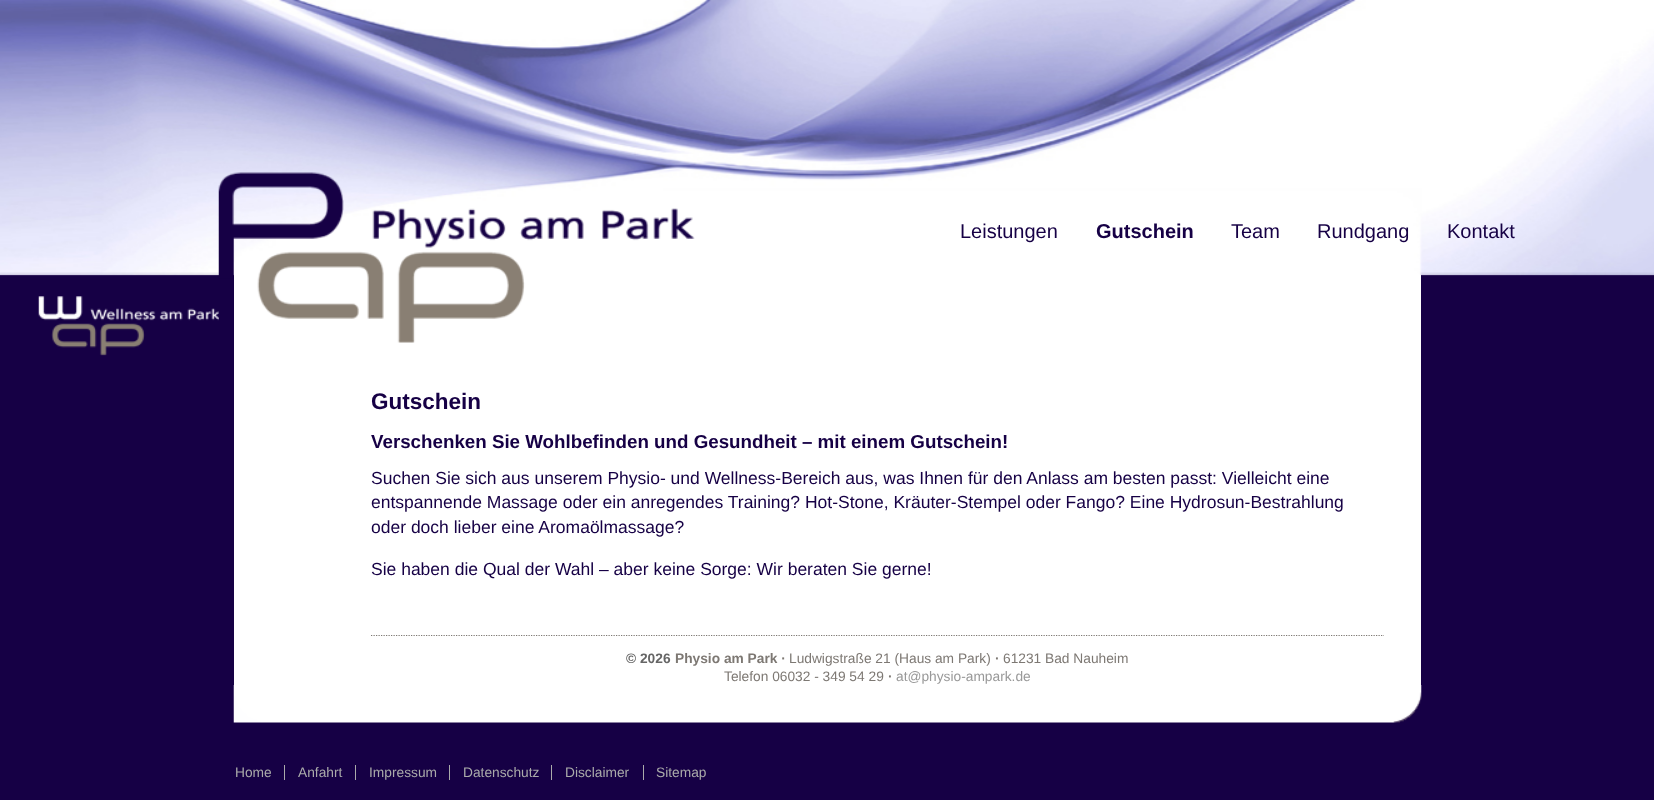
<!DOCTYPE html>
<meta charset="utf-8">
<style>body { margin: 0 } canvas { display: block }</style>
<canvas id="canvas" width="1654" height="800"></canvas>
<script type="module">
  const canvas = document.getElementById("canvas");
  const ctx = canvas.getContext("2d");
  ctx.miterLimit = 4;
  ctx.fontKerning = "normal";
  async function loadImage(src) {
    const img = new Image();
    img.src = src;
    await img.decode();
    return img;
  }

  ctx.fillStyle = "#160045";
  ctx.fillRect(0, 0, 1654, 800);
  ctx.fillStyle = "#ffffff";
  ctx.fillRect(234, 274, 1187, 411);
  ctx.drawImage(await loadImage("img1.png"), 0, 0, 1654, 276);
  ctx.drawImage(await loadImage("img2.png"), 218, 172, 477, 171);
  ctx.font = "20px Liberation Sans";
  ctx.fillStyle = "#160045";
  ctx.fillText("Leistungen", 960, 238);
  ctx.font = "bold 20px Liberation Sans";
  ctx.fillText("Gutschein", 1096, 238);
  ctx.font = "20px Liberation Sans";
  ctx.fillText("Team", 1231, 238);
  ctx.fillText("Rundgang", 1317, 238);
  ctx.fillText("Kontakt", 1447, 238);
  ctx.drawImage(await loadImage("img3.png"), 38, 296, 181, 60);
  ctx.font = "bold 22.5px Liberation Sans";
  ctx.fillText("Gutschein", 371, 409);
  ctx.font = "bold 18.75px Liberation Sans";
  ctx.fillText("Verschenken Sie Wohlbefinden und Gesundheit – mit einem Gutschein!", 371, 448);
  ctx.font = "17.5px Liberation Sans";
  ctx.fillText("Suchen Sie sich aus unserem Physio- und Wellness-Bereich aus, was Ihnen für den Anlass am besten passt: Vielleicht eine", 371, 484);
  ctx.fillText("entspannende Massage oder ein anregendes Training? Hot-Stone, Kräuter-Stempel oder Fango? Eine Hydrosun-Bestrahlung", 371, 508);
  ctx.fillText("oder doch lieber eine Aromaölmassage?", 371, 533);
  ctx.fillText("Sie haben die Qual der Wahl – aber keine Sorge: Wir beraten Sie gerne!", 371, 575);
  ctx.beginPath();
  ctx.moveTo(371, 635.5);
  ctx.lineTo(1384, 635.5);
  ctx.strokeStyle = "#7d7873";
  ctx.lineWidth = 1.2;
  ctx.setLineDash([1.25, 1.25]);
  ctx.stroke();
  ctx.font = "bold 13.75px Liberation Sans";
  ctx.fillStyle = "#666666";
  ctx.fillText("© 2026", 626, 663);
  ctx.fillStyle = "#7d7873";
  ctx.fillText("Physio am Park ·", 675, 663);
  ctx.font = "13.75px Liberation Sans";
  ctx.fillText("Ludwigstraße 21 (Haus am Park)", 789, 663);
  ctx.font = "bold 13.75px Liberation Sans";
  ctx.fillText("·", 995, 663);
  ctx.font = "13.75px Liberation Sans";
  ctx.fillText("61231 Bad Nauheim", 1003, 663);
  ctx.fillText("Telefon 06032 - 349 54 29", 724, 681);
  ctx.font = "bold 13.75px Liberation Sans";
  ctx.fillText("·", 888, 681);
  ctx.font = "13.75px Liberation Sans";
  ctx.fillStyle = "#999999";
  ctx.fillText("at@physio-ampark.de", 896, 681);
  ctx.drawImage(await loadImage("img4.png"), 233, 685, 1189, 38);
  ctx.fillStyle = "#aaaaaa";
  ctx.fillText("Home", 235, 777);
  ctx.fillText("Anfahrt", 298, 777);
  ctx.fillRect(284, 765, 1, 15);
  ctx.fillText("Impressum", 369, 777);
  ctx.fillRect(355, 765, 1, 15);
  ctx.fillText("Datenschutz", 463, 777);
  ctx.fillRect(449, 765, 1, 15);
  ctx.fillText("Disclaimer", 565, 777);
  ctx.fillRect(551, 765, 1, 15);
  ctx.fillText("Sitemap", 656, 777);
  ctx.fillRect(643, 765, 1, 15);
</script>
